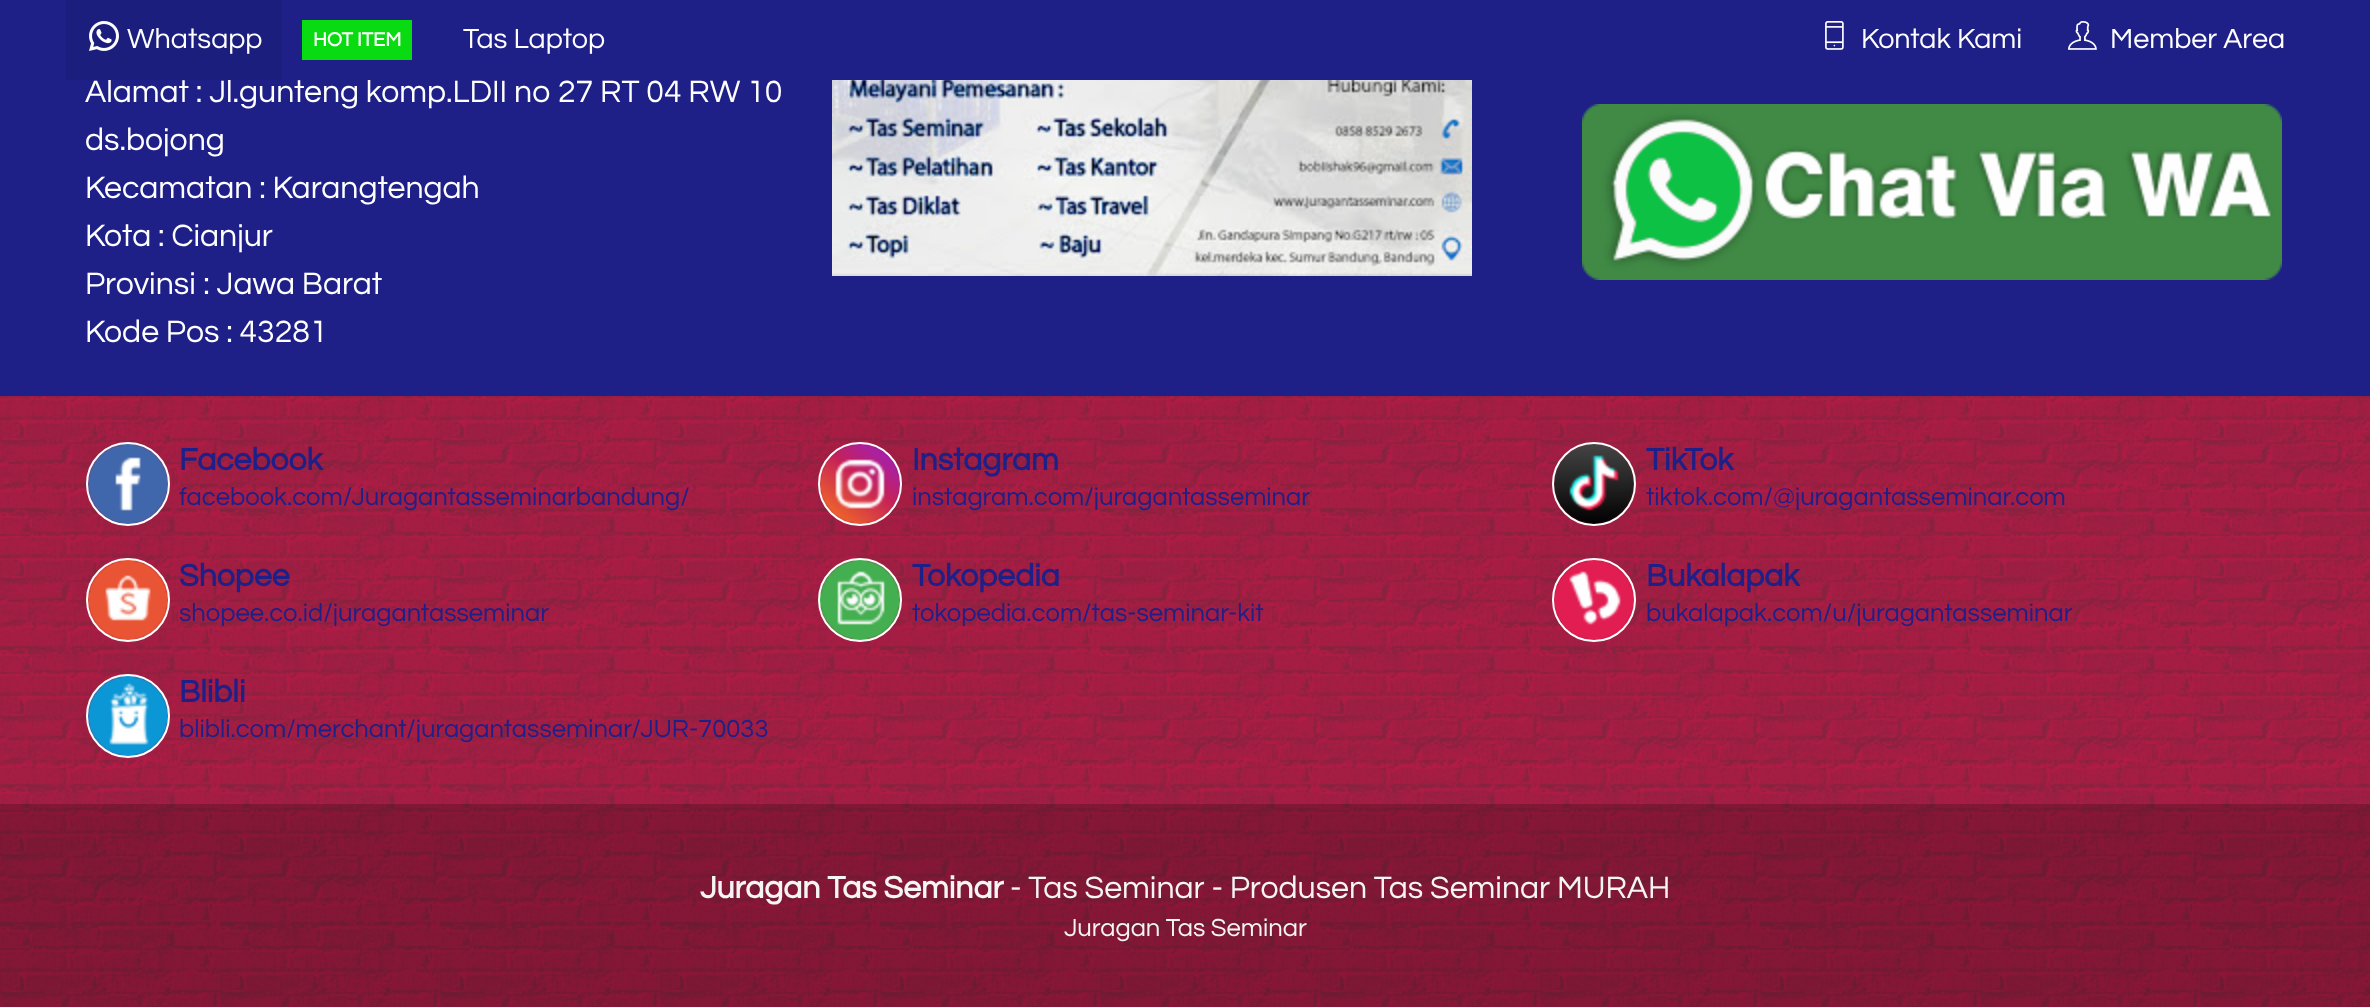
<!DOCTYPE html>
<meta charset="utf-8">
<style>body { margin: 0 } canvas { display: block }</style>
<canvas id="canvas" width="2370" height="1007"></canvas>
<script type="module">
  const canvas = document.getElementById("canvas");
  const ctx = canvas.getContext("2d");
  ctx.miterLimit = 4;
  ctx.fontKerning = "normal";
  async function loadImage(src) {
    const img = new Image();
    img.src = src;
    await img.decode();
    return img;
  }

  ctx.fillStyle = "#d71149";
  ctx.fillRect(0, 0, 2370, 1007);
  ctx.drawImage(await loadImage("img1.png"), 0, 396, 2370, 611);
  ctx.fillStyle = "#1e2088";
  ctx.fillRect(0, 80, 2370, 316);
  ctx.font = "32px Questrial";
  ctx.fillStyle = "#ffffff";
  ctx.fillText("Alamat : Jl.gunteng komp.LDII no 27 RT 04 RW 10", 85, 102);
  ctx.fillStyle = "#1e2088";
  ctx.fillRect(0, 0, 2370, 80);
  ctx.fillStyle = "#1c1e7e";
  ctx.fillRect(66, 0, 216, 80);
  ctx.drawImage(await loadImage("img2.png"), 89, 21, 30, 30);
  ctx.font = "28.75px Questrial";
  ctx.fillStyle = "#ffffff";
  ctx.fillText("Whatsapp", 127, 48);
  ctx.fillStyle = "#08db0f";
  ctx.fillRect(302, 20, 110, 40);
  ctx.font = "bold 20px Questrial";
  ctx.fillStyle = "#ffffff";
  ctx.fillText("HOT ITEM", 313, 46);
  ctx.font = "28.75px Questrial";
  ctx.fillText("Tas Laptop", 463, 48);
  ctx.drawImage(await loadImage("img3.png"), 1825, 21, 19, 29);
  ctx.fillText("Kontak Kami", 1861, 48);
  ctx.drawImage(await loadImage("img4.png"), 2068, 21, 29, 29);
  ctx.fillText("Member Area", 2110, 48);
  ctx.font = "32px Questrial";
  ctx.fillText("ds.bojong", 85, 150);
  ctx.fillText("Kecamatan : Karangtengah", 85, 198);
  ctx.fillText("Kota : Cianjur", 85, 246);
  ctx.fillText("Provinsi : Jawa Barat", 85, 294);
  ctx.fillText("Kode Pos : 43281", 85, 342);
  ctx.drawImage(await loadImage("img5.png"), 832, 80, 640, 196);
  ctx.drawImage(await loadImage("img6.png"), 1582, 104, 700, 176);
  ctx.drawImage(await loadImage("img7.png"), 87, 444, 82, 80);
  ctx.beginPath();
  ctx.arc(128, 484, 41, 0, Math.PI * 2);
  ctx.strokeStyle = "#ffffff";
  ctx.lineWidth = 2;
  ctx.stroke();
  ctx.font = "bold 32px Questrial";
  ctx.fillStyle = "#1e2088";
  ctx.fillText("Facebook", 179, 470);
  ctx.font = "25.6px Questrial";
  ctx.fillText("facebook.com/Juragantasseminarbandung/", 179, 505);
  ctx.drawImage(await loadImage("img8.png"), 819, 444, 82, 80);
  ctx.beginPath();
  ctx.arc(860, 484, 41, 0, Math.PI * 2);
  ctx.stroke();
  ctx.font = "bold 32px Questrial";
  ctx.fillText("Instagram", 912, 470);
  ctx.font = "25.6px Questrial";
  ctx.fillText("instagram.com/juragantasseminar", 912, 505);
  ctx.drawImage(await loadImage("img9.png"), 1553, 444, 82, 80);
  ctx.beginPath();
  ctx.arc(1594, 484, 41, 0, Math.PI * 2);
  ctx.stroke();
  ctx.font = "bold 32px Questrial";
  ctx.fillText("TikTok", 1646, 470);
  ctx.font = "25.6px Questrial";
  ctx.fillText("tiktok.com/@juragantasseminar.com", 1646, 505);
  ctx.drawImage(await loadImage("img10.png"), 87, 560, 82, 80);
  ctx.beginPath();
  ctx.arc(128, 600, 41, 0, Math.PI * 2);
  ctx.stroke();
  ctx.font = "bold 32px Questrial";
  ctx.fillText("Shopee", 179, 586);
  ctx.font = "25.6px Questrial";
  ctx.fillText("shopee.co.id/juragantasseminar", 179, 621);
  ctx.drawImage(await loadImage("img11.png"), 820, 560, 81, 80);
  ctx.beginPath();
  ctx.arc(860, 600, 41, 0, Math.PI * 2);
  ctx.stroke();
  ctx.font = "bold 32px Questrial";
  ctx.fillText("Tokopedia", 912, 586);
  ctx.font = "25.6px Questrial";
  ctx.fillText("tokopedia.com/tas-seminar-kit", 912, 621);
  ctx.drawImage(await loadImage("img12.png"), 1553, 560, 82, 80);
  ctx.beginPath();
  ctx.arc(1594, 600, 41, 0, Math.PI * 2);
  ctx.stroke();
  ctx.font = "bold 32px Questrial";
  ctx.fillText("Bukalapak", 1646, 586);
  ctx.font = "25.6px Questrial";
  ctx.fillText("bukalapak.com/u/juragantasseminar", 1646, 621);
  ctx.drawImage(await loadImage("img13.png"), 87, 676, 82, 80);
  ctx.beginPath();
  ctx.arc(128, 716, 41, 0, Math.PI * 2);
  ctx.stroke();
  ctx.font = "bold 32px Questrial";
  ctx.fillText("Blibli", 179, 702);
  ctx.font = "25.6px Questrial";
  ctx.fillText("blibli.com/merchant/juragantasseminar/JUR-70033", 179, 737);
  ctx.fillStyle = "rgba(0, 0, 0, 0.2)";
  ctx.fillRect(0, 804, 2370, 203);
  ctx.font = "bold 32px Questrial";
  ctx.fillStyle = "#f5f5f5";
  ctx.fillText("Juragan Tas Seminar", 700, 898);
  ctx.font = "32px Questrial";
  ctx.fillText("- Tas Seminar - Produsen Tas Seminar MURAH", 1010, 898);
  ctx.font = "25.6px Questrial";
  ctx.fillText("Juragan Tas Seminar", 1064, 936);
</script>
